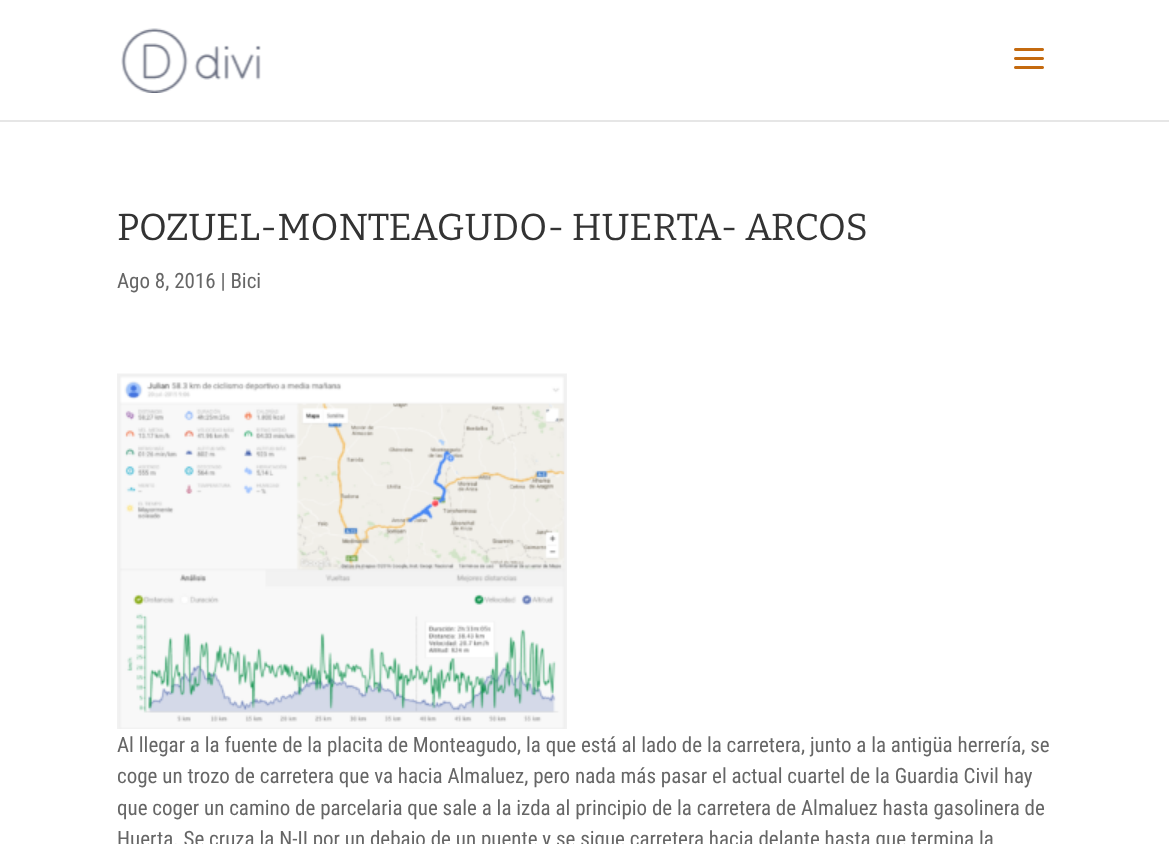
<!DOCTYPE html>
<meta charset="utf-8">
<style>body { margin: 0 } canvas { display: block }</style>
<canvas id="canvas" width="1169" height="844"></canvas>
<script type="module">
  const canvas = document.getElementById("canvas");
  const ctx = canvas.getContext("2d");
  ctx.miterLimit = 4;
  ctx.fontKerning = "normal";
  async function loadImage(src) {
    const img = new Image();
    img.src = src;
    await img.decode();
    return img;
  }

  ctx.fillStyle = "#ffffff";
  ctx.fillRect(0, 0, 1169, 844);
  ctx.fillStyle = "#e6e6e6";
  ctx.fillRect(0, 120, 1169, 2);
  ctx.drawImage(await loadImage("img1.png"), 121, 28, 140, 65);
  ctx.drawImage(await loadImage("img2.png"), 1014, 48, 30, 21);
  ctx.font = "37.5px Bitter";
  ctx.fillStyle = "#333333";
  ctx.fillText("POZUEL-MONTEAGUDO- HUERTA- ARCOS", 117, 240);
  ctx.font = "21px Roboto Condensed";
  ctx.fillStyle = "#666666";
  ctx.fillText("Ago 8, 2016 | Bici", 117, 288);
  ctx.drawImage(await loadImage("img3.png"), 117, 373, 450, 356);
  ctx.fillText("Al llegar a la fuente de la placita de Monteagudo, la que está al lado de la carretera, junto a la antigüa herrería, se", 117, 752);
  ctx.fillText("coge un trozo de carretera que va hacia Almaluez, pero nada más pasar el actual cuartel de la Guardia Civil hay", 117, 783);
  ctx.fillText("que coger un camino de parcelaria que sale a la izda al principio de la carretera de Almaluez hasta gasolinera de", 117, 815);
  ctx.fillText("Huerta. Se cruza la N-II por un debajo de un puente y se sigue carretera hacia delante hasta que termina la", 117, 846);
</script>
